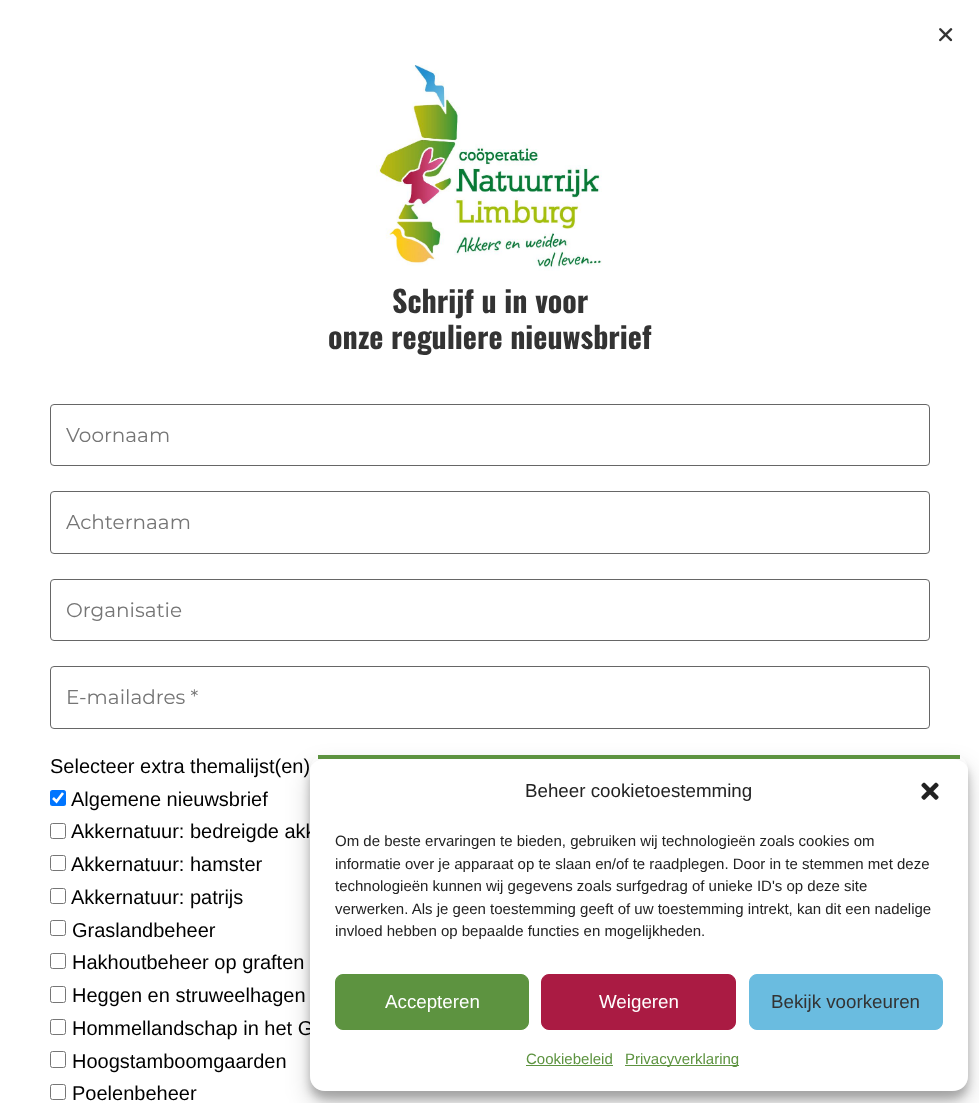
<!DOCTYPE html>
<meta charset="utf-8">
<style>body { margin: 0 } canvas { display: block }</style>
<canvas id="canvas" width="979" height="1103"></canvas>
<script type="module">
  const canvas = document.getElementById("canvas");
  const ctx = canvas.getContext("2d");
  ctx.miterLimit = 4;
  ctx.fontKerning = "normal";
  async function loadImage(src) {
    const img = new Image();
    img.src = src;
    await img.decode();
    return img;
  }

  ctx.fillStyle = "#ffffff";
  ctx.fillRect(0, 0, 979, 1103);
  ctx.drawImage(await loadImage("img1.png"), 939, 28, 14, 14);
  ctx.drawImage(await loadImage("img2.png"), 376, 65, 226, 206);
  ctx.font = "bold 30px Oswald";
  ctx.fillStyle = "#333333";
  ctx.fillText("Schrijf u in voor", 392, 313);
  ctx.fillText("onze reguliere nieuwsbrief", 328, 349);
  ctx.beginPath();
  ctx.roundRect(50.5, 404.5, 879, 61, 3.5);
  ctx.strokeStyle = "#666666";
  ctx.stroke();
  ctx.font = "20px Montserrat";
  ctx.fillStyle = "#757575";
  ctx.fillText("Voornaam", 66, 442);
  ctx.beginPath();
  ctx.roundRect(50.5, 491.5, 879, 62, 3.5);
  ctx.stroke();
  ctx.fillText("Achternaam", 66, 529);
  ctx.beginPath();
  ctx.roundRect(50.5, 579.5, 879, 61, 3.5);
  ctx.stroke();
  ctx.fillText("Organisatie", 66, 617);
  ctx.beginPath();
  ctx.roundRect(50.5, 666.5, 879, 62, 3.5);
  ctx.stroke();
  ctx.fillText("E-mailadres *", 66, 704);
  ctx.font = "20px Liberation Sans";
  ctx.fillStyle = "#000000";
  ctx.fillText("Selecteer extra themalijst(en)", 50, 773);
  ctx.fillStyle = "#0075ff";
  ctx.beginPath();
  ctx.roundRect(50, 790, 16, 16, 2.5);
  ctx.fill();
  ctx.beginPath();
  ctx.moveTo(53, 798);
  ctx.lineTo(56.5, 801.5);
  ctx.lineTo(63, 793);
  ctx.strokeStyle = "#ffffff";
  ctx.lineWidth = 2.6;
  ctx.stroke();
  ctx.fillStyle = "#000000";
  ctx.fillText("Algemene nieuwsbrief", 71, 806);
  ctx.beginPath();
  ctx.roundRect(50.5, 823.5, 15, 15, 2);
  ctx.strokeStyle = "#767676";
  ctx.lineWidth = 1;
  ctx.stroke();
  ctx.fillText("Akkernatuur: bedreigde akk", 71, 838);
  ctx.beginPath();
  ctx.roundRect(50.5, 855.5, 15, 15, 2);
  ctx.stroke();
  ctx.fillText("Akkernatuur: hamster", 71, 871);
  ctx.beginPath();
  ctx.roundRect(50.5, 888.5, 15, 15, 2);
  ctx.stroke();
  ctx.fillText("Akkernatuur: patrijs", 71, 904);
  ctx.beginPath();
  ctx.roundRect(50.5, 920.5, 15, 15, 2);
  ctx.stroke();
  ctx.fillText("Graslandbeheer", 72, 937);
  ctx.beginPath();
  ctx.roundRect(50.5, 953.5, 15, 15, 2);
  ctx.stroke();
  ctx.fillText("Hakhoutbeheer op graften", 72, 969);
  ctx.beginPath();
  ctx.roundRect(50.5, 986.5, 15, 16, 2);
  ctx.stroke();
  ctx.fillText("Heggen en struweelhagen", 72, 1002);
  ctx.beginPath();
  ctx.roundRect(50.5, 1019.5, 15, 15, 2);
  ctx.stroke();
  ctx.fillText("Hommellandschap in het G", 72, 1035);
  ctx.beginPath();
  ctx.roundRect(50.5, 1051.5, 15, 16, 2);
  ctx.stroke();
  ctx.fillText("Hoogstamboomgaarden", 72, 1068);
  ctx.beginPath();
  ctx.roundRect(50.5, 1084.5, 15, 15, 2);
  ctx.stroke();
  ctx.fillText("Poelenbeheer", 72, 1100);
  ctx.fillStyle = "rgba(0, 0, 0, 0.23)";
  ctx.filter = "blur(4px)";
  ctx.beginPath();
  ctx.roundRect(310, 763, 658, 336, 15);
  ctx.fill();
  ctx.filter = "none";
  ctx.save();
  ctx.beginPath();
  ctx.moveTo(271, 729);
  ctx.lineTo(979, 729);
  ctx.lineTo(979, 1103);
  ctx.lineTo(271, 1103);
  ctx.closePath();
  ctx.moveTo(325, 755);
  ctx.lineTo(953, 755);
  ctx.bezierCurveTo(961.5, 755, 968, 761.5, 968, 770);
  ctx.lineTo(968, 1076);
  ctx.bezierCurveTo(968, 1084.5, 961.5, 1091, 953, 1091);
  ctx.lineTo(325, 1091);
  ctx.bezierCurveTo(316.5, 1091, 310, 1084.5, 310, 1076);
  ctx.lineTo(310, 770);
  ctx.bezierCurveTo(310, 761.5, 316.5, 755, 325, 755);
  ctx.closePath();
  ctx.clip("evenodd");
  ctx.fillStyle = "rgba(0, 0, 0, 0.19)";
  ctx.filter = "blur(12.5px)";
  ctx.beginPath();
  ctx.roundRect(310, 768, 658, 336, 15);
  ctx.fill();
  ctx.filter = "none";
  ctx.restore();
  ctx.fillStyle = "#ffffff";
  ctx.beginPath();
  ctx.moveTo(325, 759);
  ctx.lineTo(952, 759);
  ctx.bezierCurveTo(961, 759, 968, 764, 968, 770);
  ctx.lineTo(968, 1076);
  ctx.bezierCurveTo(968, 1085, 961, 1091, 952, 1091);
  ctx.lineTo(325, 1091);
  ctx.bezierCurveTo(317, 1091, 310, 1085, 310, 1076);
  ctx.lineTo(310, 770);
  ctx.bezierCurveTo(310, 764, 317, 759, 325, 759);
  ctx.closePath();
  ctx.fill();
  ctx.fillStyle = "#5d9340";
  ctx.fillRect(318, 755, 642, 4);
  ctx.font = "18.75px Liberation Sans";
  ctx.fillStyle = "#222222";
  ctx.fillText("Beheer cookietoestemming", 525, 797);
  ctx.drawImage(await loadImage("img3.png"), 921, 782, 18, 18);
  ctx.font = "15px Liberation Sans";
  ctx.fillText("Om de beste ervaringen te bieden, gebruiken wij technologieën zoals cookies om", 335, 846);
  ctx.fillText("informatie over je apparaat op te slaan en/of te raadplegen. Door in te stemmen met deze", 335, 869);
  ctx.fillText("technologieën kunnen wij gegevens zoals surfgedrag of unieke ID's op deze site", 335, 891);
  ctx.fillText("verwerken. Als je geen toestemming geeft of uw toestemming intrekt, kan dit een nadelige", 335, 914);
  ctx.fillText("invloed hebben op bepaalde functies en mogelijkheden.", 335, 936);
  ctx.fillStyle = "#5d9340";
  ctx.beginPath();
  ctx.roundRect(335.5, 974.5, 193, 55, 7.5);
  ctx.fill();
  ctx.strokeStyle = "#5d9340";
  ctx.stroke();
  ctx.font = "18.75px Liberation Sans";
  ctx.fillStyle = "#ffffff";
  ctx.fillText("Accepteren", 385, 1008);
  ctx.fillStyle = "#aa1b43";
  ctx.beginPath();
  ctx.roundRect(541.5, 974.5, 194, 55, 7.5);
  ctx.fill();
  ctx.strokeStyle = "#aa1b43";
  ctx.stroke();
  ctx.fillStyle = "#ffffff";
  ctx.fillText("Weigeren", 599, 1008);
  ctx.fillStyle = "#6abce0";
  ctx.beginPath();
  ctx.roundRect(749.5, 974.5, 193, 55, 7.5);
  ctx.fill();
  ctx.strokeStyle = "#6abce0";
  ctx.stroke();
  ctx.fillStyle = "#333333";
  ctx.fillText("Bekijk voorkeuren", 771, 1008);
  ctx.font = "15px Liberation Sans";
  ctx.fillStyle = "#5d9340";
  ctx.fillText("Cookiebeleid", 526, 1064);
  ctx.fillRect(526, 1065, 87, 1);
  ctx.fillRect(625, 1065, 114, 1);
  ctx.fillText("Privacyverklaring", 625, 1064);
</script>
